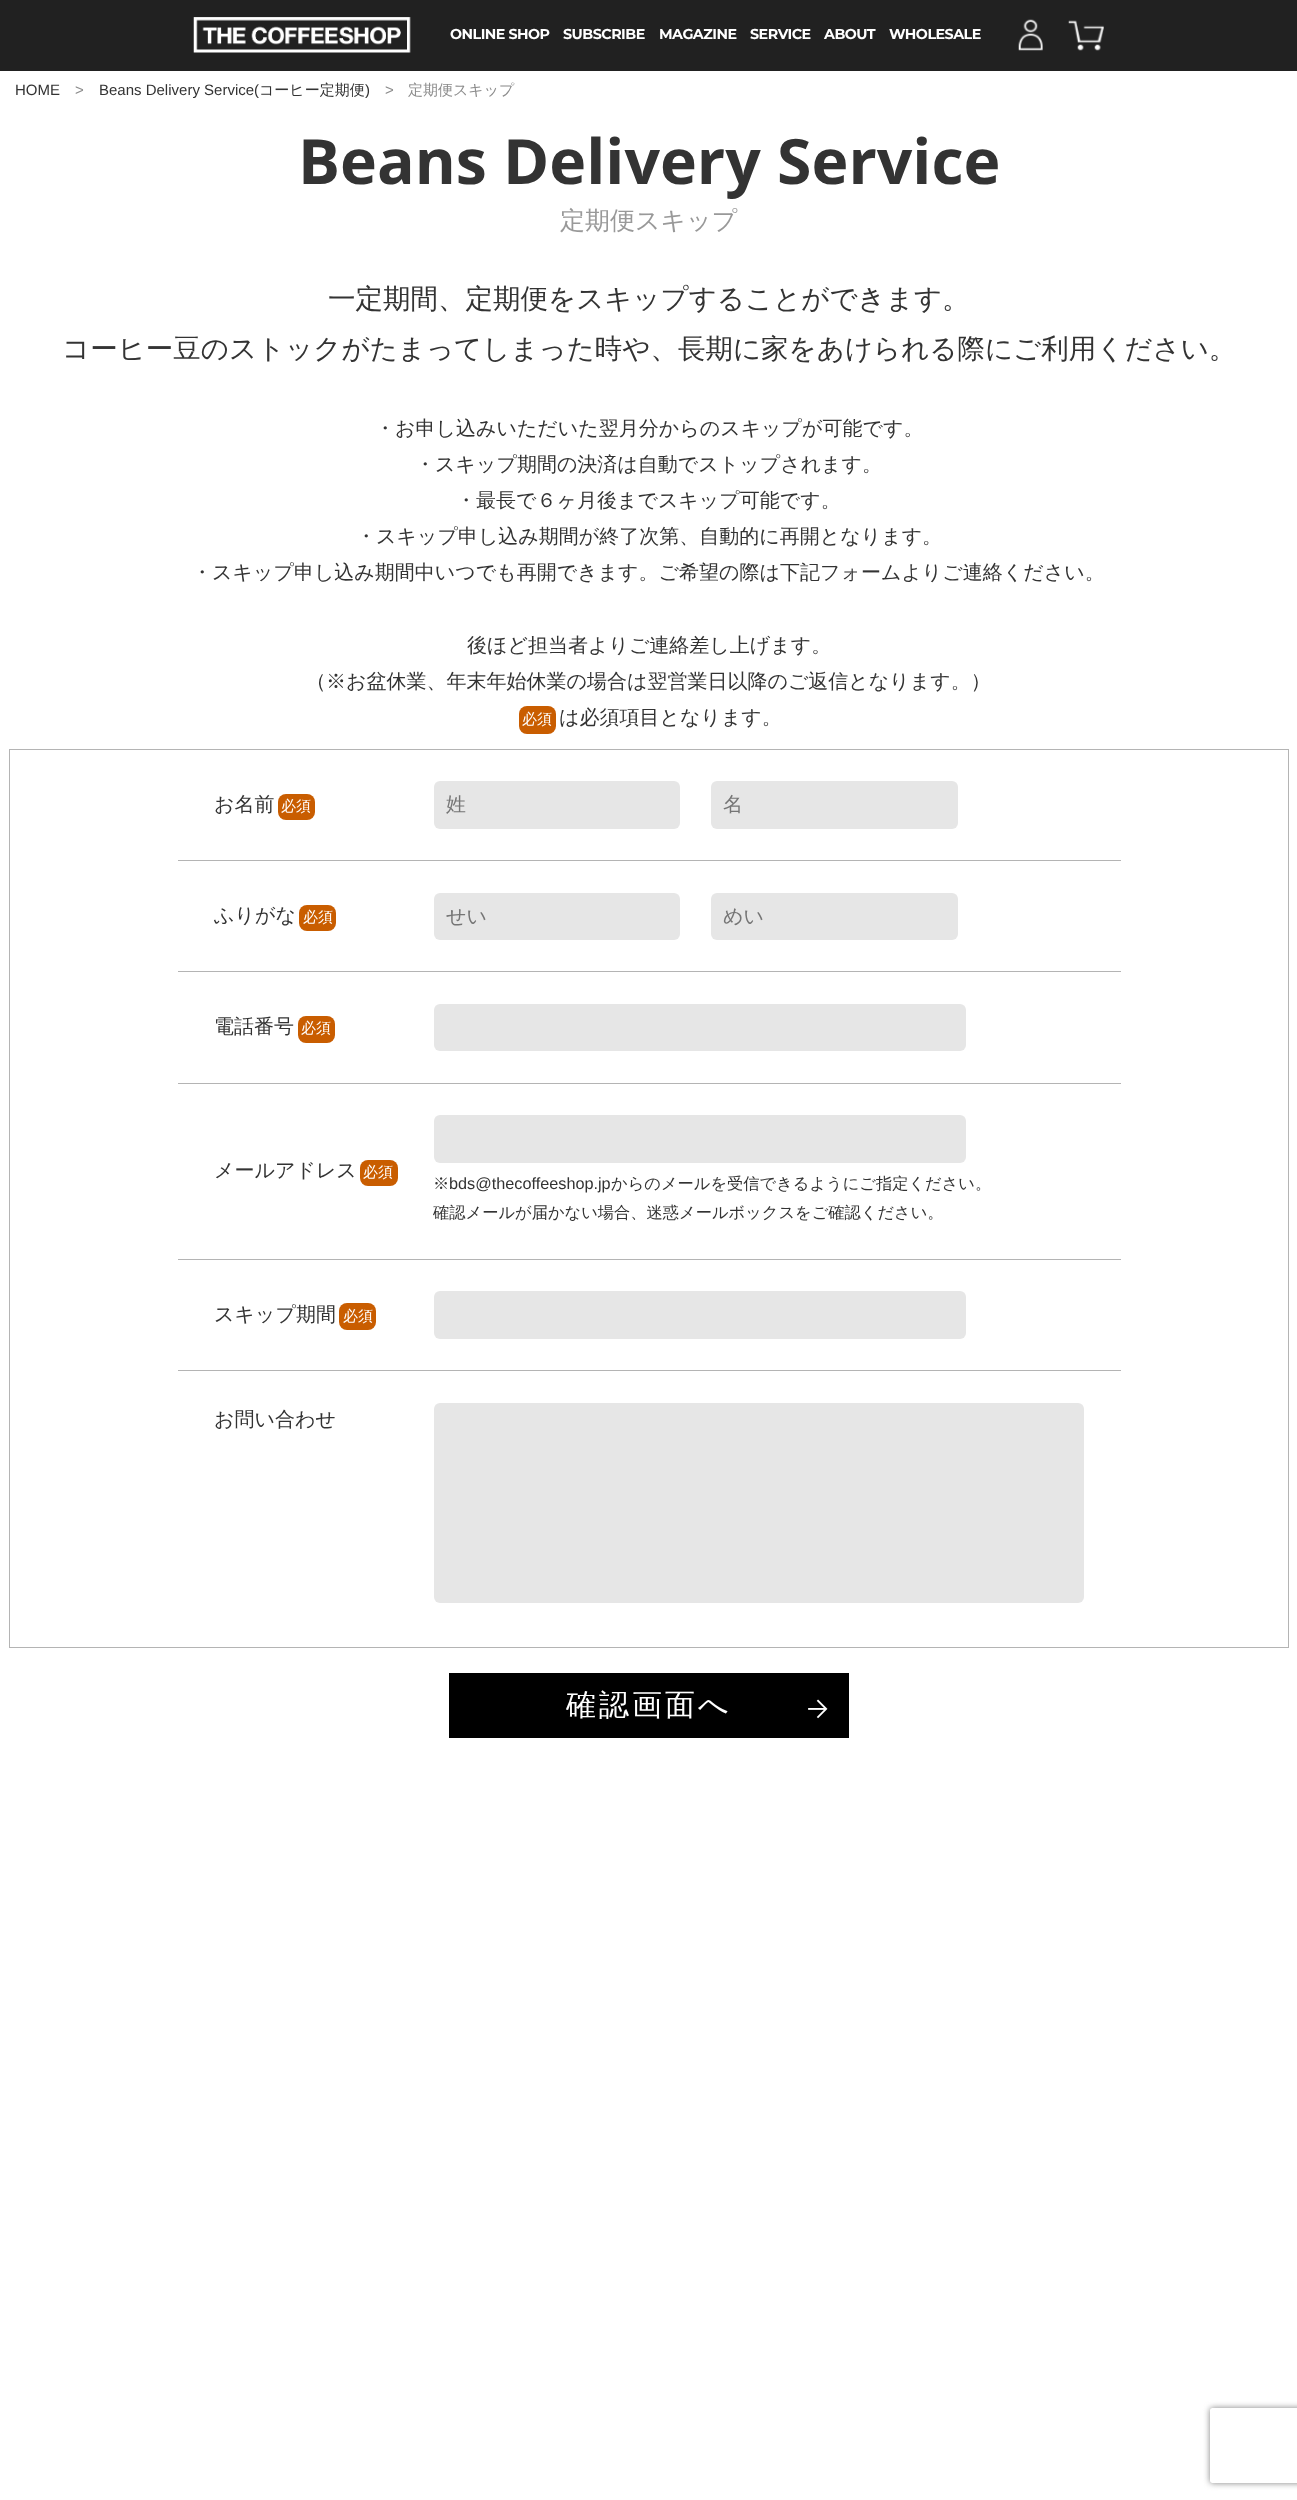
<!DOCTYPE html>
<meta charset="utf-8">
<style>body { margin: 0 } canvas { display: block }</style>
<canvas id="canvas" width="1297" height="2500"></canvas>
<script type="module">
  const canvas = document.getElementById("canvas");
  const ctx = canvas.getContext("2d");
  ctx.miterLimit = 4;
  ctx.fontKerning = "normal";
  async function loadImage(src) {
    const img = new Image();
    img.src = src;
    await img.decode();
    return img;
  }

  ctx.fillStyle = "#ffffff";
  ctx.fillRect(0, 0, 1297, 2500);
  ctx.fillStyle = "#212121";
  ctx.fillRect(0, 0, 1297, 71);
  ctx.drawImage(await loadImage("img1.png"), 193, 17, 218, 36);
  ctx.letterSpacing = "-0.5px";
  ctx.font = "bold 14.25px Montserrat";
  ctx.fillStyle = "#ffffff";
  ctx.fillText("ONLINE SHOP", 450, 39);
  ctx.fillText("SUBSCRIBE", 563, 39);
  ctx.fillText("MAGAZINE", 659, 39);
  ctx.fillText("SERVICE", 750, 39);
  ctx.fillText("ABOUT", 824, 39);
  ctx.fillText("WHOLESALE", 889, 39);
  ctx.drawImage(await loadImage("img2.png"), 1018, 19, 25, 32);
  ctx.drawImage(await loadImage("img3.png"), 1068, 20, 36, 31);
  ctx.letterSpacing = "0px";
  ctx.font = "15px Liberation Sans";
  ctx.fillStyle = "#333333";
  ctx.fillText("HOME", 15, 95);
  ctx.fillStyle = "#8c8c8c";
  ctx.fillText(">", 75, 95);
  ctx.fillStyle = "#333333";
  ctx.fillText("Beans Delivery Service(", 99, 95);
  ctx.font = "500 15px WenQuanYi Zen Hei";
  ctx.fillText("コーヒー定期便", 259, 95);
  ctx.font = "15px Liberation Sans";
  ctx.fillText(")", 365, 95);
  ctx.fillStyle = "#8c8c8c";
  ctx.fillText(">", 385, 95);
  ctx.font = "500 15px WenQuanYi Zen Hei";
  ctx.fillText("定期便スキップ", 408, 95);
  ctx.font = "bold 62.5px Open Sans";
  ctx.fillStyle = "#333333";
  ctx.fillText("Beans Delivery Service", 298, 184);
  ctx.font = "500 25px WenQuanYi Zen Hei";
  ctx.fillStyle = "#999999";
  ctx.fillText("定期便スキップ", 560, 229);
  ctx.font = "500 27.5px WenQuanYi Zen Hei";
  ctx.fillStyle = "#333333";
  ctx.fillText("一定期間、定期便をスキップすることができます。", 328, 308);
  ctx.fillText("コーヒー豆のストックがたまってしまった時や、長期に家をあけられる際にご利用ください。", 62, 358);
  ctx.font = "500 20px WenQuanYi Zen Hei";
  ctx.fillText("・お申し込みいただいた翌月分からのスキップが可能です。", 375, 435);
  ctx.fillText("・スキップ期間の決済は自動でストップされます。", 415, 471);
  ctx.fillText("・最長で６ヶ月後までスキップ可能です。", 456, 507);
  ctx.fillText("・スキップ申し込み期間が終了次第、自動的に再開となります。", 356, 543);
  ctx.fillText("・スキップ申し込み期間中いつでも再開できます。ご希望の際は下記フォームよりご連絡ください。", 192, 579);
  ctx.fillText("後ほど担当者よりご連絡差し上げます。", 467, 652);
  ctx.fillText("（※お盆休業、年末年始休業の場合は翌営業日以降のご返信となります。）", 306, 688);
  ctx.fillStyle = "#c95d00";
  ctx.beginPath();
  ctx.roundRect(519, 706, 37, 28, 8);
  ctx.fill();
  ctx.font = "500 15px WenQuanYi Zen Hei";
  ctx.fillStyle = "#ffffff";
  ctx.fillText("必須", 522, 724);
  ctx.font = "500 20px WenQuanYi Zen Hei";
  ctx.fillStyle = "#333333";
  ctx.fillText("は必須項目となります。", 559, 724);
  ctx.strokeStyle = "#b4b4b4";
  ctx.strokeRect(9.5, 749.5, 1279, 898);
  ctx.fillStyle = "#b4b4b4";
  ctx.fillRect(178, 860, 943, 1);
  ctx.fillStyle = "#333333";
  ctx.fillText("お名前", 214, 811);
  ctx.fillStyle = "#c95d00";
  ctx.beginPath();
  ctx.roundRect(278, 794, 37, 26, 8);
  ctx.fill();
  ctx.font = "500 15px WenQuanYi Zen Hei";
  ctx.fillStyle = "#ffffff";
  ctx.fillText("必須", 281, 811);
  ctx.fillStyle = "#e6e6e6";
  ctx.beginPath();
  ctx.roundRect(434, 781, 246, 48, 6);
  ctx.fill();
  ctx.font = "500 20px WenQuanYi Zen Hei";
  ctx.fillStyle = "#757575";
  ctx.fillText("姓", 446, 811);
  ctx.fillStyle = "#e6e6e6";
  ctx.beginPath();
  ctx.roundRect(711, 781, 247, 48, 6);
  ctx.fill();
  ctx.fillStyle = "#757575";
  ctx.fillText("名", 723, 811);
  ctx.fillStyle = "#b4b4b4";
  ctx.fillRect(178, 971, 943, 1);
  ctx.fillStyle = "#333333";
  ctx.fillText("ふりがな", 214, 922);
  ctx.fillStyle = "#c95d00";
  ctx.beginPath();
  ctx.roundRect(299, 905, 37, 26, 8);
  ctx.fill();
  ctx.font = "500 15px WenQuanYi Zen Hei";
  ctx.fillStyle = "#ffffff";
  ctx.fillText("必須", 303, 922);
  ctx.fillStyle = "#e6e6e6";
  ctx.beginPath();
  ctx.roundRect(434, 893, 246, 47, 6);
  ctx.fill();
  ctx.font = "500 20px WenQuanYi Zen Hei";
  ctx.fillStyle = "#757575";
  ctx.fillText("せい", 446, 923);
  ctx.fillStyle = "#e6e6e6";
  ctx.beginPath();
  ctx.roundRect(711, 893, 247, 47, 6);
  ctx.fill();
  ctx.fillStyle = "#757575";
  ctx.fillText("めい", 723, 923);
  ctx.fillStyle = "#b4b4b4";
  ctx.fillRect(178, 1083, 943, 1);
  ctx.fillStyle = "#333333";
  ctx.fillText("電話番号", 214, 1033);
  ctx.fillStyle = "#c95d00";
  ctx.beginPath();
  ctx.roundRect(298, 1016, 37, 27, 8);
  ctx.fill();
  ctx.font = "500 15px WenQuanYi Zen Hei";
  ctx.fillStyle = "#ffffff";
  ctx.fillText("必須", 301, 1033);
  ctx.fillStyle = "#e6e6e6";
  ctx.beginPath();
  ctx.roundRect(434, 1004, 532, 47, 6);
  ctx.fill();
  ctx.fillStyle = "#b4b4b4";
  ctx.fillRect(178, 1259, 943, 1);
  ctx.font = "500 20px WenQuanYi Zen Hei";
  ctx.fillStyle = "#333333";
  ctx.fillText("メールアドレス", 214, 1177);
  ctx.fillStyle = "#c95d00";
  ctx.beginPath();
  ctx.roundRect(360, 1160, 38, 26, 8);
  ctx.fill();
  ctx.font = "500 15px WenQuanYi Zen Hei";
  ctx.fillStyle = "#ffffff";
  ctx.fillText("必須", 363, 1177);
  ctx.fillStyle = "#e6e6e6";
  ctx.beginPath();
  ctx.roundRect(434, 1115, 532, 48, 6);
  ctx.fill();
  ctx.font = "500 16.25px WenQuanYi Zen Hei";
  ctx.fillStyle = "#333333";
  ctx.fillText("※", 433, 1189);
  ctx.font = "16.25px Liberation Sans";
  ctx.fillText("bds@thecoffeeshop.jp", 449, 1189);
  ctx.font = "500 16.25px WenQuanYi Zen Hei";
  ctx.fillText("からのメールを受信できるようにご指定ください。", 611, 1189);
  ctx.fillText("確認メールが届かない場合、迷惑メールボックスをご確認ください。", 433, 1218);
  ctx.fillStyle = "#b4b4b4";
  ctx.fillRect(178, 1370, 943, 1);
  ctx.font = "500 20px WenQuanYi Zen Hei";
  ctx.fillStyle = "#333333";
  ctx.fillText("スキップ期間", 214, 1321);
  ctx.fillStyle = "#c95d00";
  ctx.beginPath();
  ctx.roundRect(339, 1303, 37, 27, 8);
  ctx.fill();
  ctx.font = "500 15px WenQuanYi Zen Hei";
  ctx.fillStyle = "#ffffff";
  ctx.fillText("必須", 343, 1321);
  ctx.fillStyle = "#e6e6e6";
  ctx.beginPath();
  ctx.roundRect(434, 1291, 532, 48, 6);
  ctx.fill();
  ctx.font = "500 20px WenQuanYi Zen Hei";
  ctx.fillStyle = "#333333";
  ctx.fillText("お問い合わせ", 214, 1426);
  ctx.fillStyle = "#e6e6e6";
  ctx.beginPath();
  ctx.roundRect(434, 1403, 650, 200, 6);
  ctx.fill();
  ctx.fillStyle = "#000000";
  ctx.fillRect(449, 1673, 400, 65);
  ctx.letterSpacing = "3px";
  ctx.font = "500 30px WenQuanYi Zen Hei";
  ctx.fillStyle = "#ffffff";
  ctx.fillText("確認画面へ", 566, 1715);
  ctx.drawImage(await loadImage("img4.png"), 808, 1699, 20, 20);
  ctx.save();
  ctx.beginPath();
  ctx.moveTo(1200, 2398);
  ctx.lineTo(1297, 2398);
  ctx.lineTo(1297, 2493);
  ctx.lineTo(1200, 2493);
  ctx.closePath();
  ctx.moveTo(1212.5, 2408);
  ctx.lineTo(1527.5, 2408);
  ctx.bezierCurveTo(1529, 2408, 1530, 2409, 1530, 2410.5);
  ctx.lineTo(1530, 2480.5);
  ctx.bezierCurveTo(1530, 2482, 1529, 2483, 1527.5, 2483);
  ctx.lineTo(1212.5, 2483);
  ctx.bezierCurveTo(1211, 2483, 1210, 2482, 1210, 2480.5);
  ctx.lineTo(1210, 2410.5);
  ctx.bezierCurveTo(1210, 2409, 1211, 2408, 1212.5, 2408);
  ctx.closePath();
  ctx.clip("evenodd");
  ctx.fillStyle = "#808080";
  ctx.filter = "blur(3px)";
  ctx.beginPath();
  ctx.roundRect(1210, 2408, 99, 75, 2.5);
  ctx.fill();
  ctx.filter = "none";
  ctx.restore();
</script>
